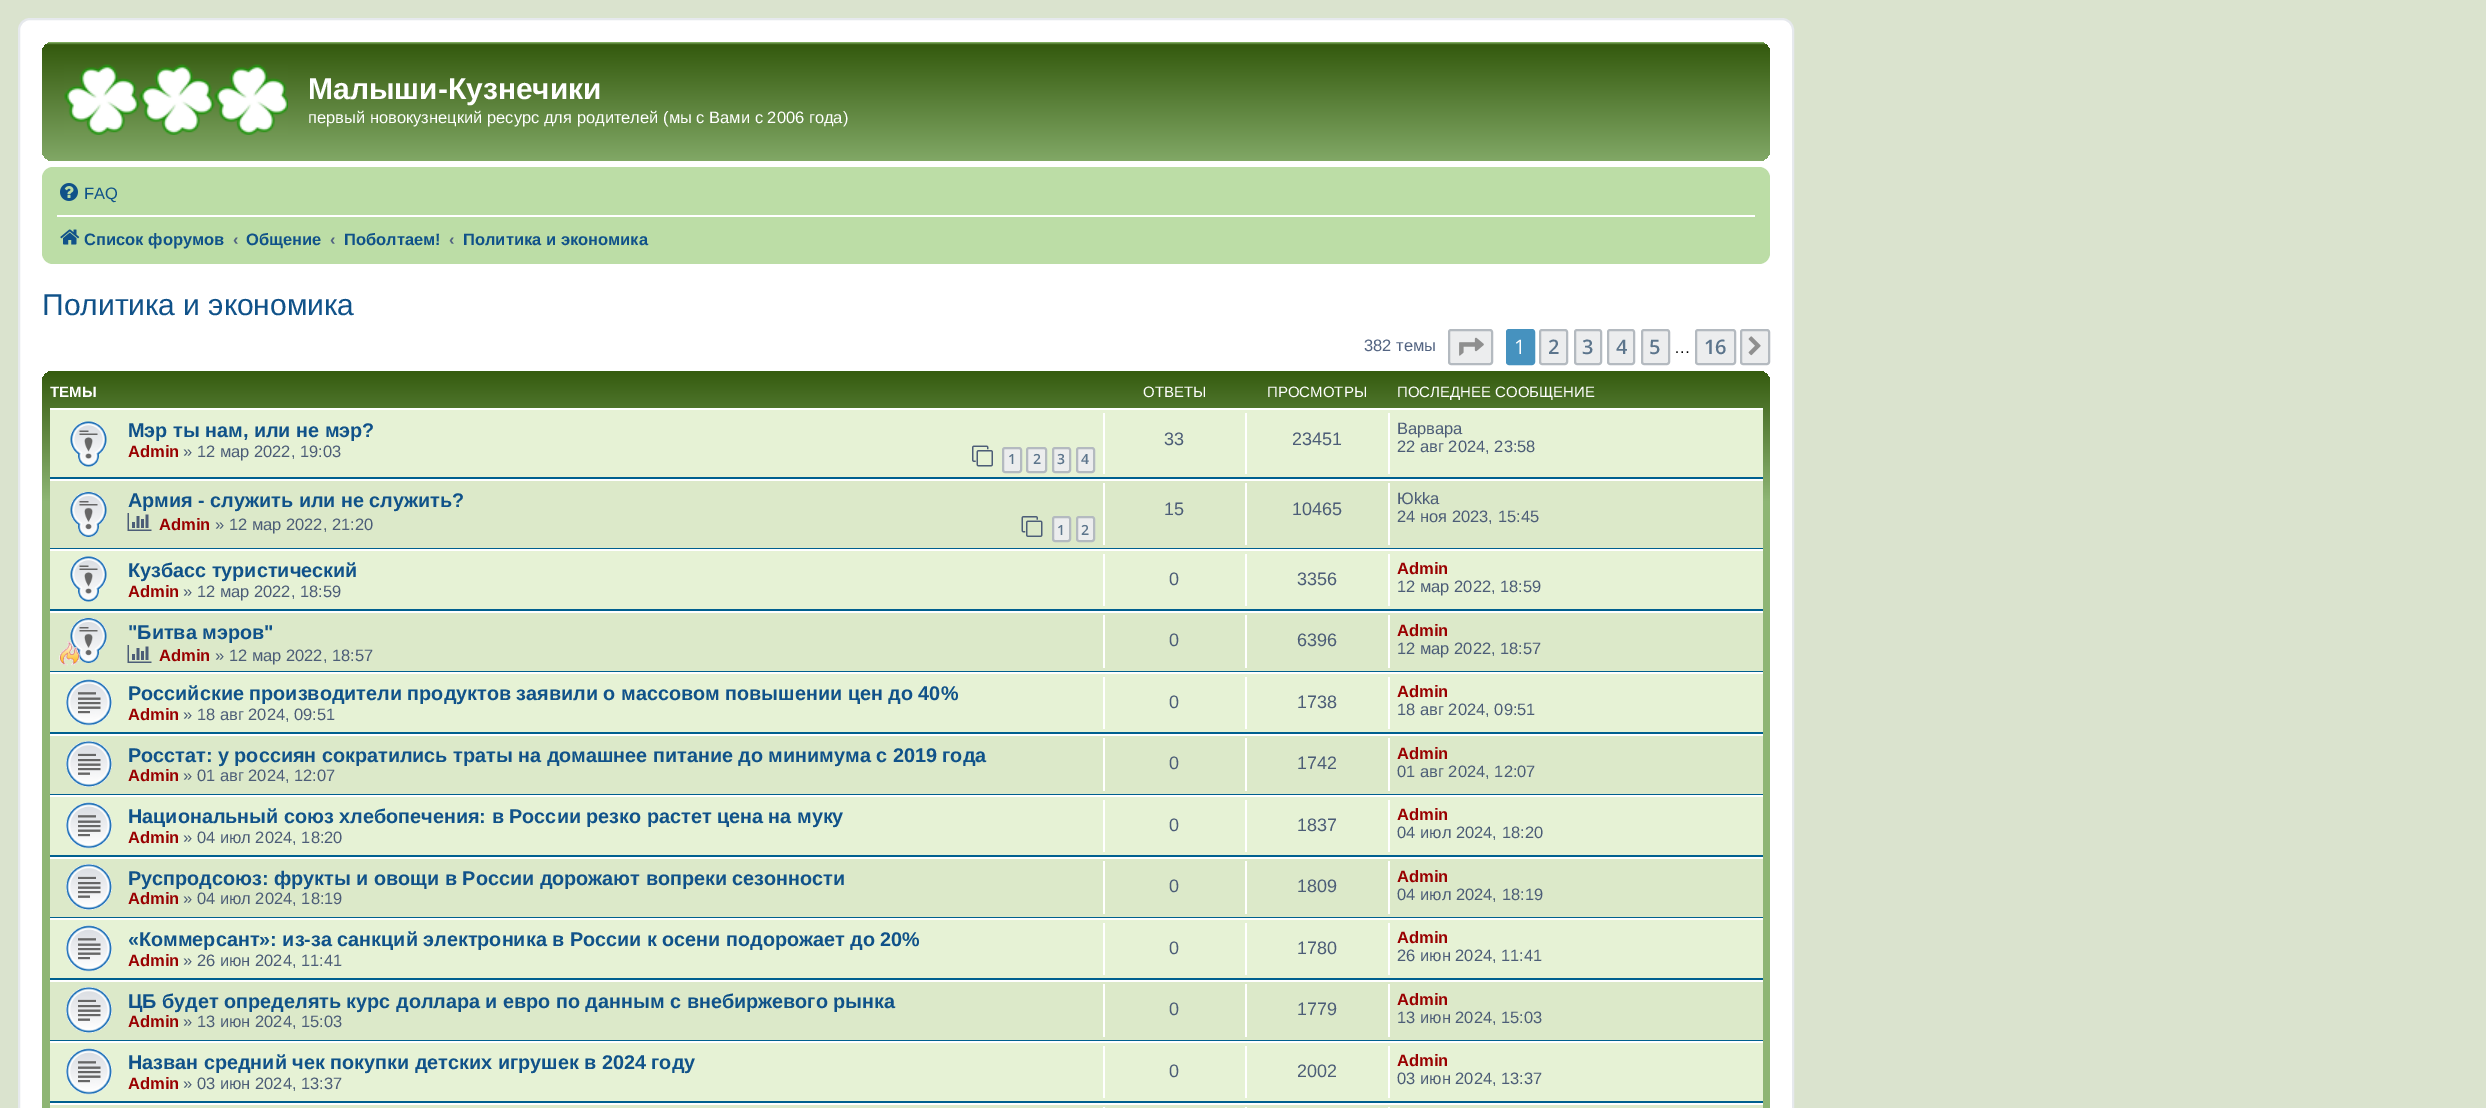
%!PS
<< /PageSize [2486 1108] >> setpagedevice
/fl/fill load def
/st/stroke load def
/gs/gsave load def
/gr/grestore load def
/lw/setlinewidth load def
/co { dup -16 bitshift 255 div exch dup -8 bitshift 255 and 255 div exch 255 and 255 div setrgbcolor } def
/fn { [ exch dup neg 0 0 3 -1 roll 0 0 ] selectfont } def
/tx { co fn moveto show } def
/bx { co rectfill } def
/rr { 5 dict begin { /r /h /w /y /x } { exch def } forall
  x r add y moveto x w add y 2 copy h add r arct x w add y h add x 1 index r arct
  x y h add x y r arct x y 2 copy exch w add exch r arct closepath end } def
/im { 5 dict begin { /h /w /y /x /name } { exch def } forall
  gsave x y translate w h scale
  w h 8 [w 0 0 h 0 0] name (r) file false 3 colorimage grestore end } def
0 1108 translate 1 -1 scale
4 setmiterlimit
0 0 2486 1108 16#DAE3CE bx
16#FFFFFF co
19 19 1774 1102 11 rr gs fl gr
16#E6E9ED co
2 lw
st
gs 42 42 1728 119 11 rr clip newpath
<< /ShadingType 2 /ColorSpace /DeviceRGB /Coords [906 42 906 180] /Extend [true true] /Function << /FunctionType 3 /Domain [0 1] /Functions [<< /FunctionType 2 /Domain [0 1] /C0 [.557 .741 .439] /C1 [.204 .353 .055] /N 1 >> << /FunctionType 2 /Domain [0 1] /C0 [.204 .353 .055] /C1 [.557 .71 .455] /N 1 >>] /Bounds [.02] /Encode [0 1 0 1] >> >> shfill gr
(media/1.raw) 64 64 224 71 im
16#BCDDA6 co
42 167 1728 97 11 rr fl
(media/2.raw) 60 183 18 18 im
57 215 1698 2 16#FFFFFF bx
(media/3.raw) 60 229 20 16 im
16#ECEDEE co
1449 330 43 34 2 rr gs fl gr
16#B4BAC0 co
st
(media/4.raw) 1459 337 25 19 im
16#4692BF co
1507 330 27 34 2 rr gs fl gr
st
16#ECEDEE co
1540 330 27 34 2 rr gs fl gr
16#B4BAC0 co
st
16#ECEDEE co
1575 330 26 34 2 rr gs fl gr
16#B4BAC0 co
st
16#ECEDEE co
1608 330 26 34 2 rr gs fl gr
16#B4BAC0 co
st
16#ECEDEE co
1642 330 27 34 2 rr gs fl gr
16#B4BAC0 co
st
16#ECEDEE co
1696 330 39 34 2 rr gs fl gr
16#B4BAC0 co
st
16#ECEDEE co
1741 330 28 34 2 rr gs fl gr
16#B4BAC0 co
st
(media/5.raw) 1748 336 13 20 im
gs 42 371 1728 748 11 rr clip newpath
<< /ShadingType 2 /ColorSpace /DeviceRGB /Coords [906 370 906 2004] /Extend [true true] /Function << /FunctionType 3 /Domain [0 1] /Functions [<< /FunctionType 2 /Domain [0 1] /C0 [.204 .353 .055] /C1 [.557 .71 .455] /N 1 >> << /FunctionType 2 /Domain [0 1] /C0 [.557 .71 .455] /C1 [.557 .71 .455] /N 1 >>] /Bounds [.08] /Encode [0 1 0 1] >> >> shfill gr
50 410 1713 67 16#E6F2D5 bx
50 408 1713 2 16#FFFFFF bx
50 477 1713 2 16#00608F bx
(media/6.raw) 70 421 37 46 im
(media/7.raw) 972 445 21 22 im
16#ECEDEE co
1003 448 18 24 2 rr gs fl gr
16#B4BAC0 co
st
16#ECEDEE co
1027 448 19 24 2 rr gs fl gr
16#B4BAC0 co
st
16#ECEDEE co
1053 448 17 24 2 rr gs fl gr
16#B4BAC0 co
st
16#ECEDEE co
1077 448 17 24 2 rr gs fl gr
16#B4BAC0 co
st
1103 413 2 61 16#FFFFFF bx
1245 413 2 61 16#FFFFFF bx
1388 413 2 61 16#FFFFFF bx
50 481 1713 67 16#DCE9C9 bx
50 479 1713 2 16#FFFFFF bx
50 548 1713 1 16#00608F bx
(media/8.raw) 70 492 37 45 im
(media/9.raw) 127 513 25 18 im
(media/10.raw) 1021 516 22 21 im
16#ECEDEE co
1053 517 17 24 2 rr gs fl gr
16#B4BAC0 co
st
16#ECEDEE co
1077 517 17 24 2 rr gs fl gr
16#B4BAC0 co
st
1103 483 2 62 16#FFFFFF bx
1245 483 2 62 16#FFFFFF bx
1388 483 2 62 16#FFFFFF bx
50 551 1713 58 16#E6F2D5 bx
50 549 1713 2 16#FFFFFF bx
50 609 1713 2 16#00608F bx
(media/6.raw) 70 556 37 46 im
1103 554 2 52 16#FFFFFF bx
1245 554 2 52 16#FFFFFF bx
1388 554 2 52 16#FFFFFF bx
50 613 1713 58 16#DCE9C9 bx
50 611 1713 2 16#FFFFFF bx
50 671 1713 1 16#00608F bx
(media/8.raw) 70 618 37 45 im
(media/11.raw) 59 641 21 25 im
(media/9.raw) 127 645 25 18 im
1103 615 2 53 16#FFFFFF bx
1245 615 2 53 16#FFFFFF bx
1388 615 2 53 16#FFFFFF bx
50 674 1713 58 16#E6F2D5 bx
50 672 1713 2 16#FFFFFF bx
50 732 1713 2 16#00608F bx
(media/12.raw) 66 679 46 47 im
1103 677 2 52 16#FFFFFF bx
1245 677 2 52 16#FFFFFF bx
1388 677 2 52 16#FFFFFF bx
50 736 1713 58 16#DCE9C9 bx
50 734 1713 2 16#FFFFFF bx
50 794 1713 1 16#00608F bx
(media/13.raw) 66 741 46 46 im
1103 738 2 53 16#FFFFFF bx
1245 738 2 53 16#FFFFFF bx
1388 738 2 53 16#FFFFFF bx
50 797 1713 58 16#E6F2D5 bx
50 795 1713 2 16#FFFFFF bx
50 855 1713 2 16#00608F bx
(media/12.raw) 66 802 46 47 im
1103 800 2 52 16#FFFFFF bx
1245 800 2 52 16#FFFFFF bx
1388 800 2 52 16#FFFFFF bx
50 859 1713 58 16#DCE9C9 bx
50 857 1713 2 16#FFFFFF bx
50 917 1713 1 16#00608F bx
(media/13.raw) 66 864 46 46 im
1103 861 2 53 16#FFFFFF bx
1245 861 2 53 16#FFFFFF bx
1388 861 2 53 16#FFFFFF bx
50 920 1713 58 16#E6F2D5 bx
50 918 1713 2 16#FFFFFF bx
50 978 1713 2 16#00608F bx
(media/12.raw) 66 925 46 47 im
1103 923 2 52 16#FFFFFF bx
1245 923 2 52 16#FFFFFF bx
1388 923 2 52 16#FFFFFF bx
50 982 1713 58 16#DCE9C9 bx
50 980 1713 2 16#FFFFFF bx
50 1040 1713 1 16#00608F bx
(media/13.raw) 66 987 46 46 im
1103 984 2 53 16#FFFFFF bx
1245 984 2 53 16#FFFFFF bx
1388 984 2 53 16#FFFFFF bx
50 1043 1713 58 16#E6F2D5 bx
50 1041 1713 2 16#FFFFFF bx
50 1101 1713 2 16#00608F bx
(media/12.raw) 66 1048 46 47 im
1103 1046 2 52 16#FFFFFF bx
1245 1046 2 52 16#FFFFFF bx
1388 1046 2 52 16#FFFFFF bx
50 1105 1713 3 16#DCE9C9 bx
50 1103 1713 2 16#FFFFFF bx
1103 1107 2 1 16#FFFFFF bx
1245 1107 2 1 16#FFFFFF bx
1388 1107 2 1 16#FFFFFF bx
(Малыши-Кузнечики) 308 99 /LiberationSans-Bold 30 16#FFFFFF tx
(первый новокузнецкий ресурс для родителей \(мы с Вами с 2006 года\)) 308 123 /LiberationSans-Regular 16.5 16#FFFFFF tx
(FAQ) 84 199 /LiberationSans-Regular 16.5 16#105289 tx
(Список форумов) 84 245 /LiberationSans-Bold 16.5 16#105289 tx
(‹) 233 245 /LiberationSans-Bold 16.5 16#536482 tx
(Общение) 246 245 /LiberationSans-Bold 16.5 16#105289 tx
(‹) 330 245 /LiberationSans-Bold 16.5 16#536482 tx
(Поболтаем!) 344 245 /LiberationSans-Bold 16.5 16#105289 tx
(‹) 449 245 /LiberationSans-Bold 16.5 16#536482 tx
(Политика и экономика) 463 245 /LiberationSans-Bold 16.5 16#105289 tx
(Политика и экономика) 42 315 /LiberationSans-Regular 30 16#105289 tx
(382 темы) 1364 351 /LiberationSans-Regular 16.5 16#536482 tx
(1) 1514 354 /OpenSans-Regular 20 16#FFFFFF tx
(2) 1548 354 /OpenSans-SemiBold 20 16#5C758C tx
(3) 1582 354 /OpenSans-SemiBold 20 16#5C758C tx
(4) 1616 354 /OpenSans-SemiBold 20 16#5C758C tx
(5) 1649 354 /OpenSans-SemiBold 20 16#5C758C tx
(…) 1674 353 /LiberationSans-Regular 16.5 16#000000 tx
(16) 1704 354 /OpenSans-SemiBold 20 16#5C758C tx
gs
50 378 1713 30 rectclip
(ТЕМЫ) 50 397 /LiberationSans-Bold 15 16#FFFFFF tx
gr
(ОТВЕТЫ) 1143 397 /LiberationSans-Regular 15 16#FFFFFF tx
(ПРОСМОТРЫ) 1267 397 /LiberationSans-Regular 15 16#FFFFFF tx
(ПОСЛЕДНЕЕ СООБЩЕНИЕ) 1397 397 /LiberationSans-Regular 15 16#FFFFFF tx
(Мэр ты нам, или не мэр?) 128 437 /LiberationSans-Bold 19.8 16#105289 tx
(Admin) 128 457 /LiberationSans-Bold 16.5 16#990000 tx
(» 12 мар 2022, 19:03) 183 457 /LiberationSans-Regular 16.5 16#4C5D77 tx
(1) 1008 464 /OpenSans-SemiBold 14 16#5C758C tx
(2) 1033 464 /OpenSans-SemiBold 14 16#5C758C tx
(3) 1057 464 /OpenSans-SemiBold 14 16#5C758C tx
(4) 1081 464 /OpenSans-SemiBold 14 16#5C758C tx
(33) 1164 445 /LiberationSans-Regular 18 16#4C5D77 tx
(23451) 1292 445 /LiberationSans-Regular 18 16#4C5D77 tx
(Варвара) 1397 434 /LiberationSans-Regular 16.5 16#4C5D77 tx
(22 авг 2024, 23:58) 1397 452 /LiberationSans-Regular 16.5 16#4C5D77 tx
(Армия - служить или не служить?) 128 507 /LiberationSans-Bold 19.8 16#105289 tx
(Admin) 159 530 /LiberationSans-Bold 16.5 16#990000 tx
(» 12 мар 2022, 21:20) 215 530 /LiberationSans-Regular 16.5 16#4C5D77 tx
(1) 1057 535 /OpenSans-SemiBold 14 16#5C758C tx
(2) 1081 535 /OpenSans-SemiBold 14 16#5C758C tx
(15) 1164 515 /LiberationSans-Regular 18 16#4C5D77 tx
(10465) 1292 515 /LiberationSans-Regular 18 16#4C5D77 tx
(Юkka) 1397 504 /LiberationSans-Regular 16.5 16#4C5D77 tx
(24 ноя 2023, 15:45) 1397 522 /LiberationSans-Regular 16.5 16#4C5D77 tx
(Кузбасс туристический) 128 577 /LiberationSans-Bold 19.8 16#105289 tx
(Admin) 128 597 /LiberationSans-Bold 16.5 16#990000 tx
(» 12 мар 2022, 18:59) 183 597 /LiberationSans-Regular 16.5 16#4C5D77 tx
(0) 1169 585 /LiberationSans-Regular 18 16#4C5D77 tx
(3356) 1297 585 /LiberationSans-Regular 18 16#4C5D77 tx
(Admin) 1397 574 /LiberationSans-Bold 16.5 16#990000 tx
(12 мар 2022, 18:59) 1397 592 /LiberationSans-Regular 16.5 16#4C5D77 tx
("Битва мэров") 128 639 /LiberationSans-Bold 19.8 16#105289 tx
(Admin) 159 661 /LiberationSans-Bold 16.5 16#990000 tx
(» 12 мар 2022, 18:57) 215 661 /LiberationSans-Regular 16.5 16#4C5D77 tx
(0) 1169 646 /LiberationSans-Regular 18 16#4C5D77 tx
(6396) 1297 646 /LiberationSans-Regular 18 16#4C5D77 tx
(Admin) 1397 636 /LiberationSans-Bold 16.5 16#990000 tx
(12 мар 2022, 18:57) 1397 654 /LiberationSans-Regular 16.5 16#4C5D77 tx
(Российские производители продуктов заявили о массовом повышении цен до 40%) 128 700 /LiberationSans-Bold 19.8 16#105289 tx
(Admin) 128 720 /LiberationSans-Bold 16.5 16#990000 tx
(» 18 авг 2024, 09:51) 183 720 /LiberationSans-Regular 16.5 16#4C5D77 tx
(0) 1169 708 /LiberationSans-Regular 18 16#4C5D77 tx
(1738) 1297 708 /LiberationSans-Regular 18 16#4C5D77 tx
(Admin) 1397 697 /LiberationSans-Bold 16.5 16#990000 tx
(18 авг 2024, 09:51) 1397 715 /LiberationSans-Regular 16.5 16#4C5D77 tx
(Росстат: у россиян сократились траты на домашнее питание до минимума с 2019 года) 128 762 /LiberationSans-Bold 19.8 16#105289 tx
(Admin) 128 781 /LiberationSans-Bold 16.5 16#990000 tx
(» 01 авг 2024, 12:07) 183 781 /LiberationSans-Regular 16.5 16#4C5D77 tx
(0) 1169 769 /LiberationSans-Regular 18 16#4C5D77 tx
(1742) 1297 769 /LiberationSans-Regular 18 16#4C5D77 tx
(Admin) 1397 759 /LiberationSans-Bold 16.5 16#990000 tx
(01 авг 2024, 12:07) 1397 777 /LiberationSans-Regular 16.5 16#4C5D77 tx
(Национальный союз хлебопечения: в России резко растет цена на муку) 128 823 /LiberationSans-Bold 19.8 16#105289 tx
(Admin) 128 843 /LiberationSans-Bold 16.5 16#990000 tx
(» 04 июл 2024, 18:20) 183 843 /LiberationSans-Regular 16.5 16#4C5D77 tx
(0) 1169 831 /LiberationSans-Regular 18 16#4C5D77 tx
(1837) 1297 831 /LiberationSans-Regular 18 16#4C5D77 tx
(Admin) 1397 820 /LiberationSans-Bold 16.5 16#990000 tx
(04 июл 2024, 18:20) 1397 838 /LiberationSans-Regular 16.5 16#4C5D77 tx
(Руспродсоюз: фрукты и овощи в России дорожают вопреки сезонности) 128 885 /LiberationSans-Bold 19.8 16#105289 tx
(Admin) 128 904 /LiberationSans-Bold 16.5 16#990000 tx
(» 04 июл 2024, 18:19) 183 904 /LiberationSans-Regular 16.5 16#4C5D77 tx
(0) 1169 892 /LiberationSans-Regular 18 16#4C5D77 tx
(1809) 1297 892 /LiberationSans-Regular 18 16#4C5D77 tx
(Admin) 1397 882 /LiberationSans-Bold 16.5 16#990000 tx
(04 июл 2024, 18:19) 1397 900 /LiberationSans-Regular 16.5 16#4C5D77 tx
(«Коммерсант»: из-за санкций электроника в России к осени подорожает до 20%) 128 946 /LiberationSans-Bold 19.8 16#105289 tx
(Admin) 128 966 /LiberationSans-Bold 16.5 16#990000 tx
(» 26 июн 2024, 11:41) 183 966 /LiberationSans-Regular 16.5 16#4C5D77 tx
(0) 1169 954 /LiberationSans-Regular 18 16#4C5D77 tx
(1780) 1297 954 /LiberationSans-Regular 18 16#4C5D77 tx
(Admin) 1397 943 /LiberationSans-Bold 16.5 16#990000 tx
(26 июн 2024, 11:41) 1397 961 /LiberationSans-Regular 16.5 16#4C5D77 tx
(ЦБ будет определять курс доллара и евро по данным с внебиржевого рынка) 128 1008 /LiberationSans-Bold 19.8 16#105289 tx
(Admin) 128 1027 /LiberationSans-Bold 16.5 16#990000 tx
(» 13 июн 2024, 15:03) 183 1027 /LiberationSans-Regular 16.5 16#4C5D77 tx
(0) 1169 1015 /LiberationSans-Regular 18 16#4C5D77 tx
(1779) 1297 1015 /LiberationSans-Regular 18 16#4C5D77 tx
(Admin) 1397 1005 /LiberationSans-Bold 16.5 16#990000 tx
(13 июн 2024, 15:03) 1397 1023 /LiberationSans-Regular 16.5 16#4C5D77 tx
(Назван средний чек покупки детских игрушек в 2024 году) 128 1069 /LiberationSans-Bold 19.8 16#105289 tx
(Admin) 128 1089 /LiberationSans-Bold 16.5 16#990000 tx
(» 03 июн 2024, 13:37) 183 1089 /LiberationSans-Regular 16.5 16#4C5D77 tx
(0) 1169 1077 /LiberationSans-Regular 18 16#4C5D77 tx
(2002) 1297 1077 /LiberationSans-Regular 18 16#4C5D77 tx
(Admin) 1397 1066 /LiberationSans-Bold 16.5 16#990000 tx
(03 июн 2024, 13:37) 1397 1084 /LiberationSans-Regular 16.5 16#4C5D77 tx
showpage
